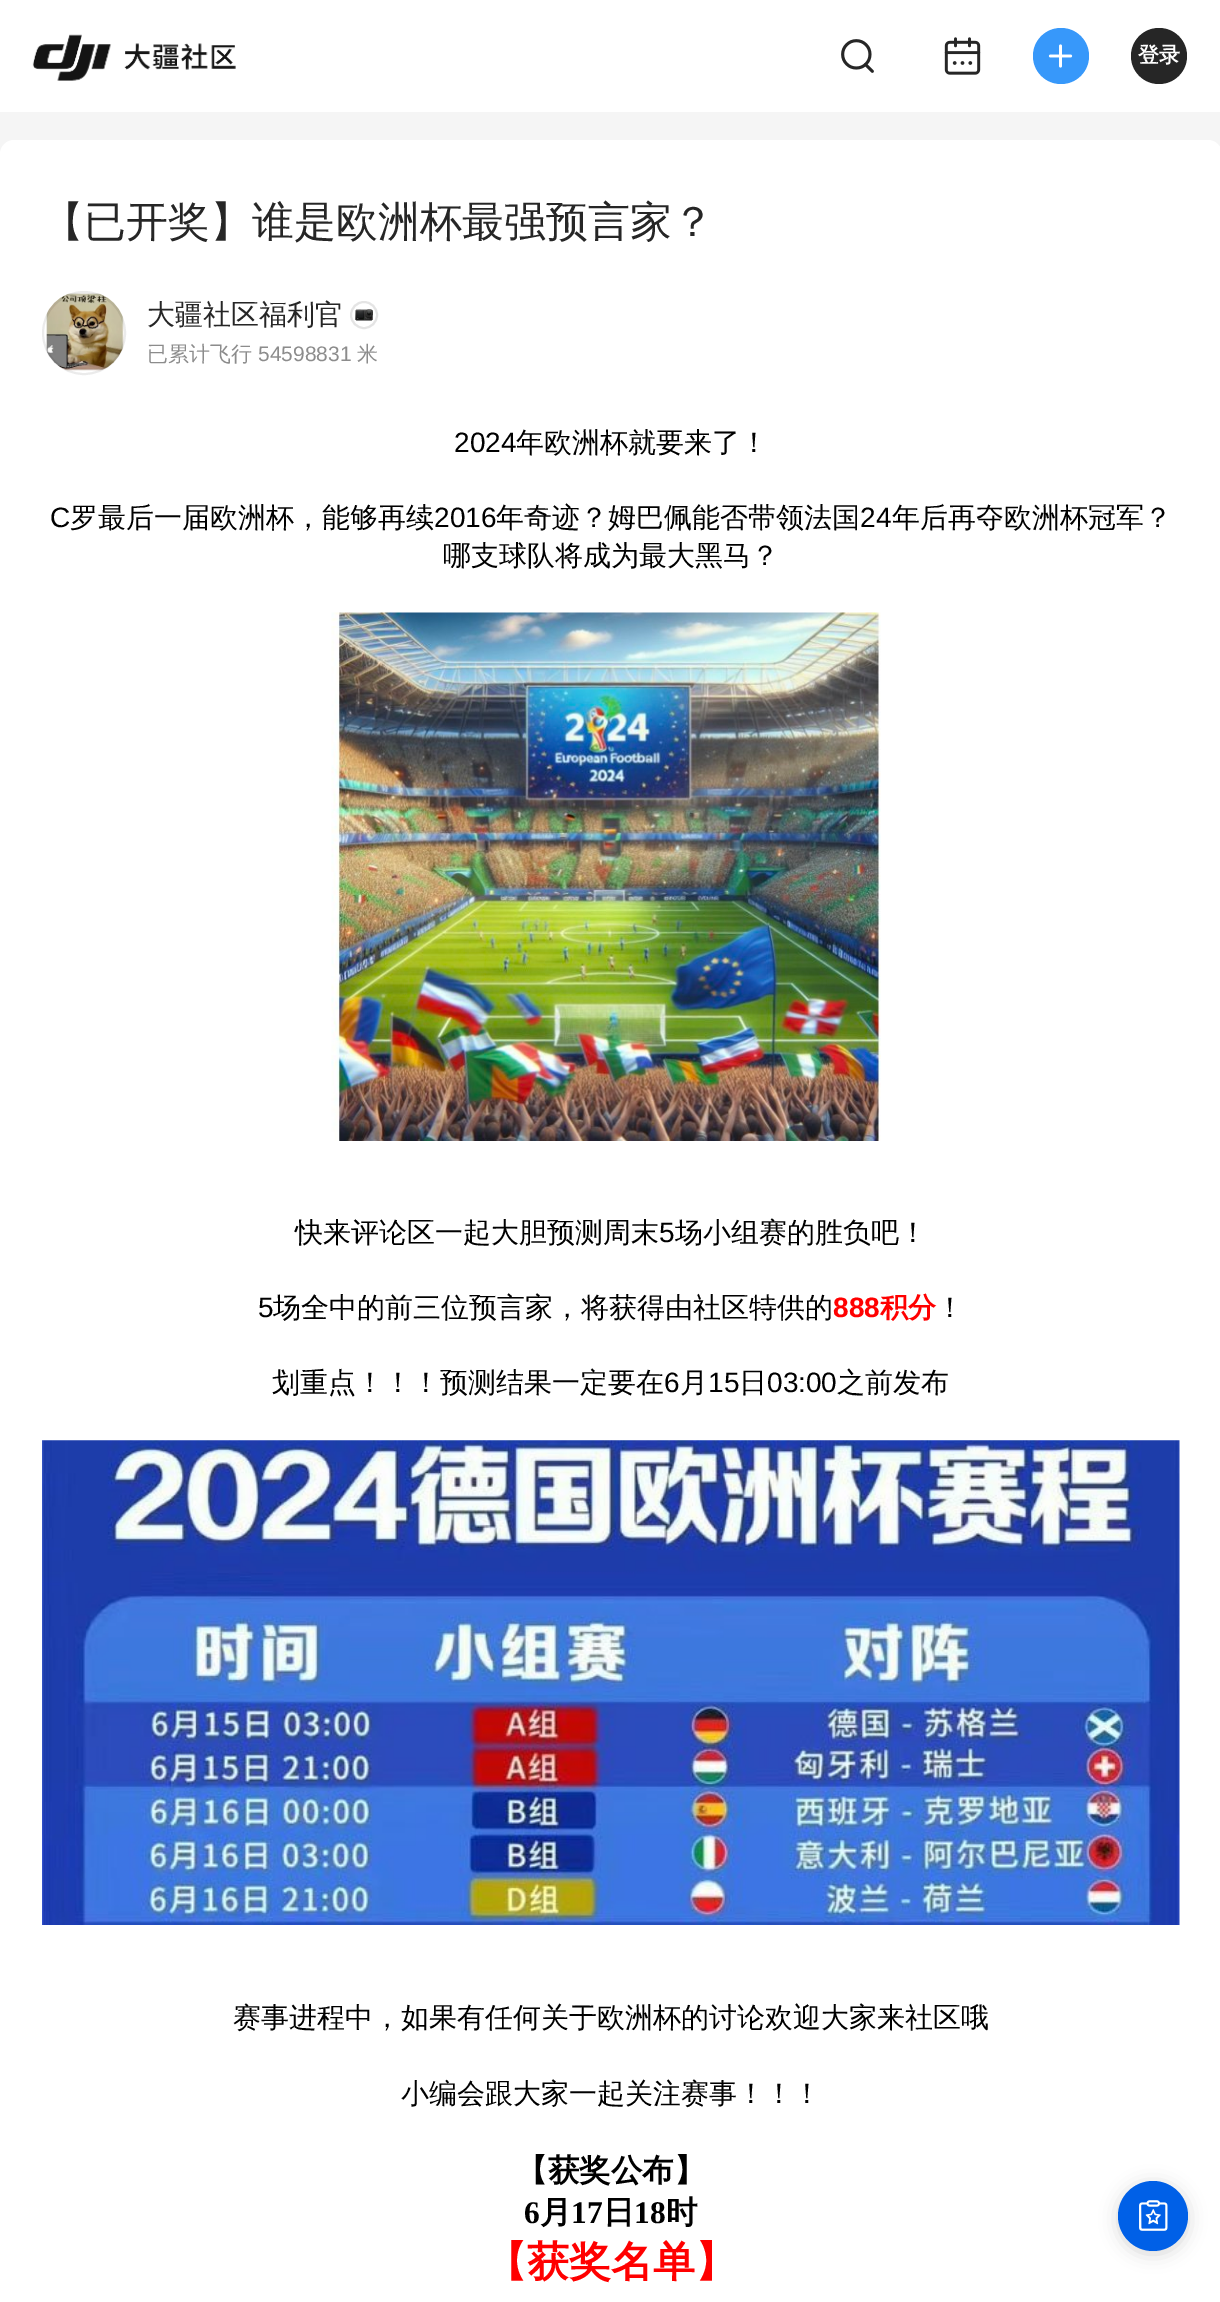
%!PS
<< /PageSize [1220 2302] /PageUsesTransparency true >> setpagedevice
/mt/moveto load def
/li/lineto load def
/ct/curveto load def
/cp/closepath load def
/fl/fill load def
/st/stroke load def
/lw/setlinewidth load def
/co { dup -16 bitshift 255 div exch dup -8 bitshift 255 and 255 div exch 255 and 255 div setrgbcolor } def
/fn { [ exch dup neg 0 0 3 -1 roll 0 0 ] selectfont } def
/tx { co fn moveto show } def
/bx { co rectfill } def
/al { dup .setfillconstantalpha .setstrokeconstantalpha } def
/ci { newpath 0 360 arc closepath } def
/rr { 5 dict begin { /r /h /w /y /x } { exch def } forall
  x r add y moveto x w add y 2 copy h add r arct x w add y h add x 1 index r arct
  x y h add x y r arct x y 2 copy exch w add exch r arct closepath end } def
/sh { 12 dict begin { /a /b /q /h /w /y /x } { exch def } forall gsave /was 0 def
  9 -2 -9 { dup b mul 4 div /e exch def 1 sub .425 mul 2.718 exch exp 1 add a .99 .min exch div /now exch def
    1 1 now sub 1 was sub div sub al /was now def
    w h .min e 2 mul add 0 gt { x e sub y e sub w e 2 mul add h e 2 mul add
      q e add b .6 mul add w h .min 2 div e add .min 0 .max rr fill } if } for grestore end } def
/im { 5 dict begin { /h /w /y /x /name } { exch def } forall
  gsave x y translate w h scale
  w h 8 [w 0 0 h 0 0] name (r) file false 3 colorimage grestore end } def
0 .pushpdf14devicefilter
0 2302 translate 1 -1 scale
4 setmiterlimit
0 0 1220 2302 16#F5F5F5 bx
0 0 1220 112 16#FFFFFF bx
(media/1.raw) 32 34 204 47 im
(media/2.raw) 841 39 33 34 im
(media/3.raw) 944 37 37 38 im
16#3798FA co
1061 56 28 ci fl
(media/4.raw) 1048 44 25 24 im
16#262626 co
1159 56 28 ci fl
16#FFFFFF co
14 140 mt 1208 140 li 1215.5 140 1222 146.5 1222 154 ct 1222 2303 li 0 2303 li 0 154 li 0 146.5 6.5 140 14 140 ct cp fl
(media/5.raw) 46 293 78 78 im
0.08 al
16#000000 co
2 lw
84 333 41 ci st
1 al
16#E4E4E4 co
364 315 13 ci st
(media/6.raw) 355 309 18 12 im
(media/7.raw) 331 612 550 529 im
(media/8.raw) 42 1440 1138 485 im
16#000000 co
1118 2184 70 70 35 9 .16 sh
16#0060E7 co
1153 2216 35 ci fl
(media/9.raw) 1139 2200 29 31 im
(登录) 1138 62 /WenQuanYiZenHei-Bold 21 16#FFFFFF tx
(【已开奖】谁是欧洲杯最强预言家？) 42 236 /WenQuanYiZenHei-Medium 42 16#262626 tx
(大疆社区福利官) 147 324 /WenQuanYiZenHei-Medium 28 16#262626 tx
(已累计飞行) 147 361 /WenQuanYiZenHei-Medium 21 16#8C8C8C tx
(54598831) 258 361 /LiberationSans-Regular 21 16#8C8C8C tx
(米) 357 361 /WenQuanYiZenHei-Medium 21 16#8C8C8C tx
(2024) 454 452 /LiberationSans-Regular 28 16#000000 tx
(年欧洲杯就要来了！) 516 452 /WenQuanYiZenHei-Medium 28 16#000000 tx
(C) 50 527 /LiberationSans-Regular 28 16#000000 tx
(罗最后一届欧洲杯，能够再续) 70 527 /WenQuanYiZenHei-Medium 28 16#000000 tx
(2016) 434 527 /LiberationSans-Regular 28 16#000000 tx
(年奇迹？姆巴佩能否带领法国) 496 527 /WenQuanYiZenHei-Medium 28 16#000000 tx
(24) 860 527 /LiberationSans-Regular 28 16#000000 tx
(年后再夺欧洲杯冠军？) 892 527 /WenQuanYiZenHei-Medium 28 16#000000 tx
(哪支球队将成为最大黑马？) 443 565 /WenQuanYiZenHei-Medium 28 16#000000 tx
(快来评论区一起大胆预测周末) 295 1242 /WenQuanYiZenHei-Medium 28 16#000000 tx
(5) 659 1242 /LiberationSans-Regular 28 16#000000 tx
(场小组赛的胜负吧！) 675 1242 /WenQuanYiZenHei-Medium 28 16#000000 tx
(5) 258 1317 /LiberationSans-Regular 28 16#000000 tx
(场全中的前三位预言家，将获得由社区特供的) 273 1317 /WenQuanYiZenHei-Medium 28 16#000000 tx
(888) 833 1317 /LiberationSans-Bold 28 16#FF0000 tx
(积分) 880 1317 /WenQuanYiZenHei-Bold 28 16#FF0000 tx
(！) 936 1317 /WenQuanYiZenHei-Medium 28 16#000000 tx
(划重点！！！预测结果一定要在) 272 1392 /WenQuanYiZenHei-Medium 28 16#000000 tx
(6) 664 1392 /LiberationSans-Regular 28 16#000000 tx
(月) 680 1392 /WenQuanYiZenHei-Medium 28 16#000000 tx
(15) 708 1392 /LiberationSans-Regular 28 16#000000 tx
(日) 739 1392 /WenQuanYiZenHei-Medium 28 16#000000 tx
(03:00) 767 1392 /LiberationSans-Regular 28 16#000000 tx
(之前发布) 837 1392 /WenQuanYiZenHei-Medium 28 16#000000 tx
(赛事进程中，如果有任何关于欧洲杯的讨论欢迎大家来社区哦) 233 2027 /WenQuanYiZenHei-Medium 28 16#000000 tx
(小编会跟大家一起关注赛事！！！) 401 2103 /WenQuanYiZenHei-Medium 28 16#000000 tx
(【获奖公布】) 516 2181 /WenQuanYiZenHei-Bold 31.5 16#000000 tx
(6) 524 2223 /LiberationSerif-Bold 31.5 16#000000 tx
(月) 540 2223 /WenQuanYiZenHei-Bold 31.5 16#000000 tx
(17) 571 2223 /LiberationSerif-Bold 31.5 16#000000 tx
(日) 603 2223 /WenQuanYiZenHei-Bold 31.5 16#000000 tx
(18) 634 2223 /LiberationSerif-Bold 31.5 16#000000 tx
(时) 666 2223 /WenQuanYiZenHei-Bold 31.5 16#000000 tx
(【获奖名单】) 485 2276 /WenQuanYiZenHei-Bold 42 16#FF0000 tx
.poppdf14devicefilter showpage
